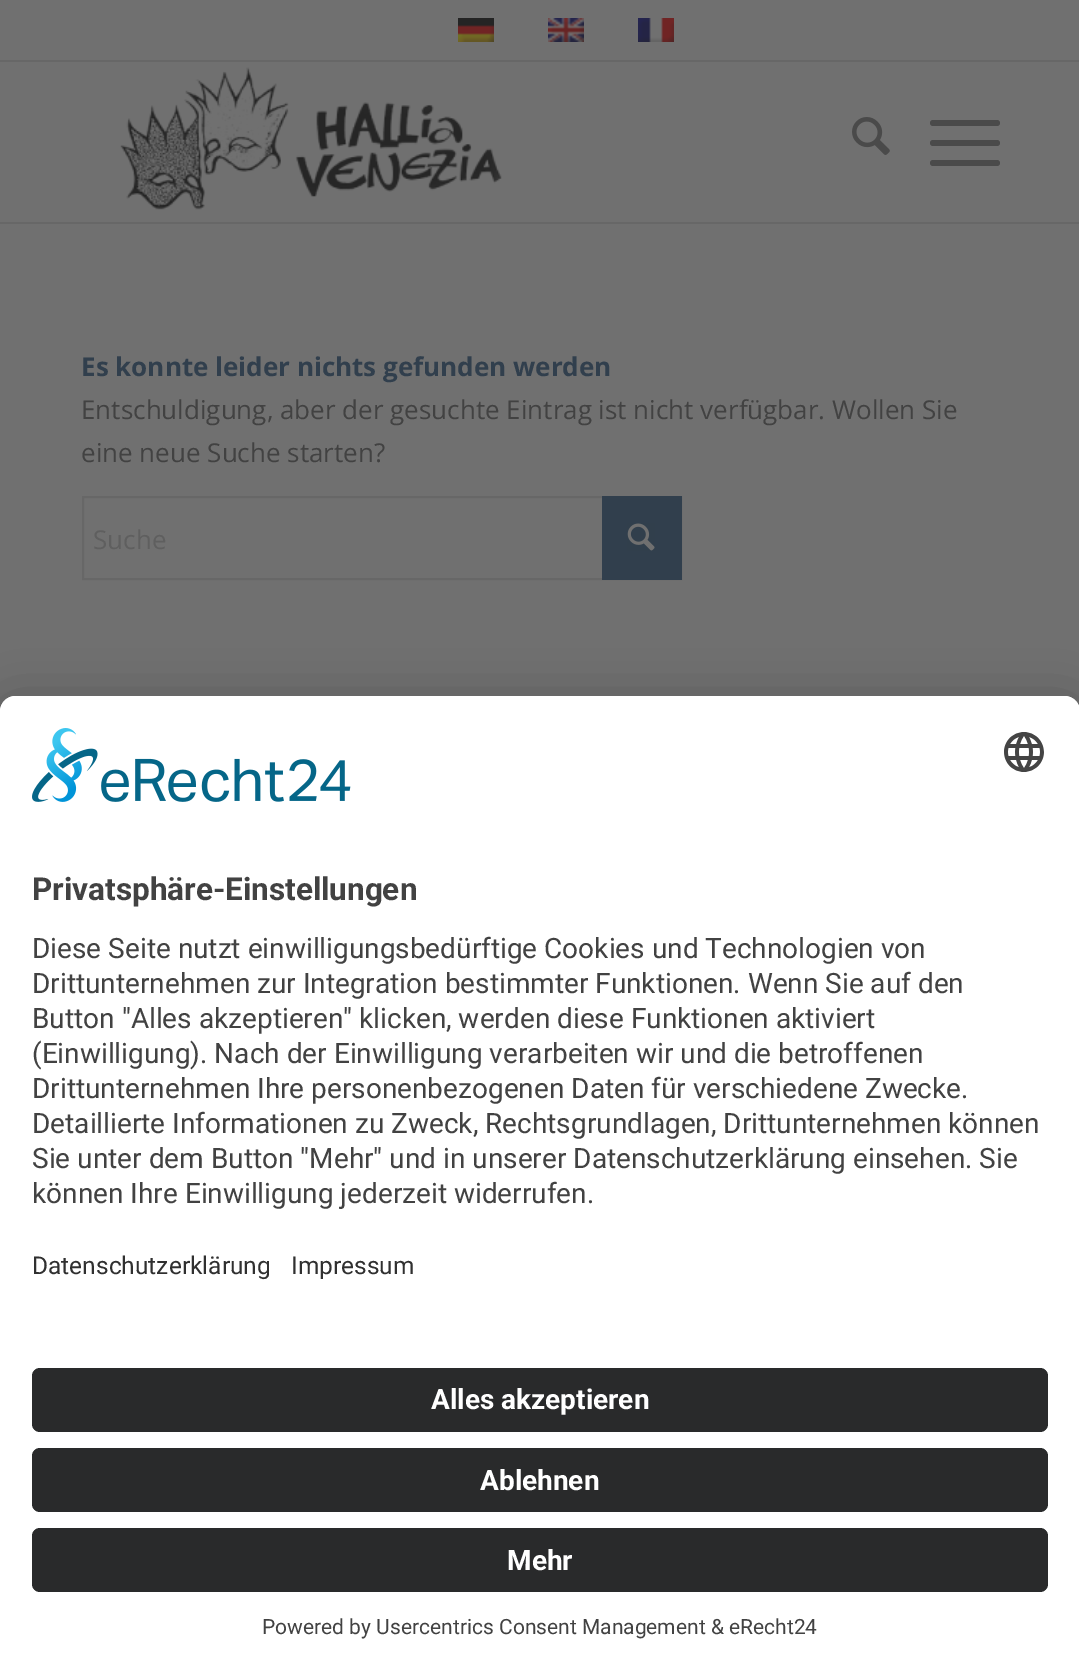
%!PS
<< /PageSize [1079 1671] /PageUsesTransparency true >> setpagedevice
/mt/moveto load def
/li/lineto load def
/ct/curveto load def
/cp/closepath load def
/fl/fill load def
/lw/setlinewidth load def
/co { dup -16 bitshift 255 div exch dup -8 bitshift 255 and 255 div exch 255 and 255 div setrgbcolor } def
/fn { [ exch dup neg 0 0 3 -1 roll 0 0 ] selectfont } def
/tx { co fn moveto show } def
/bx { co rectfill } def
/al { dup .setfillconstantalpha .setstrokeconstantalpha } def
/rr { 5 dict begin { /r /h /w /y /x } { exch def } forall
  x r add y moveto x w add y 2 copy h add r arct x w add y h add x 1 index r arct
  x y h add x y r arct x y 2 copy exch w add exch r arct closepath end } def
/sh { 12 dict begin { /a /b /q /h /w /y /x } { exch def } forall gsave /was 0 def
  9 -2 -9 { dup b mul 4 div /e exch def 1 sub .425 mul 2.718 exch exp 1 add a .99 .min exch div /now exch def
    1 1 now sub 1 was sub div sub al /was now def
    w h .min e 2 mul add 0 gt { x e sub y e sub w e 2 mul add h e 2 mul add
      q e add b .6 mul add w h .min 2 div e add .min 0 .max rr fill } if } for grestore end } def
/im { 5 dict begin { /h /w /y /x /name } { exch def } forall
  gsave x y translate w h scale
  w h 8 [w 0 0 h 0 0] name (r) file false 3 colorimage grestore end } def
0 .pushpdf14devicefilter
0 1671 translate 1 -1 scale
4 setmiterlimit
0 0 1079 1671 16#707070 bx
0 60 1079 2 16#676767 bx
(media/1.raw) 458 18 36 24 im
(media/2.raw) 548 18 36 24 im
(media/3.raw) 638 18 36 24 im
0 222 1079 2 16#676767 bx
(media/4.raw) 120 67 382 143 im
(media/5.raw) 852 117 38 38 im
16#4A4A4A co
930 140 70 6 3 rr fl
930 120 70 6 3 rr fl
930 160 70 6 3 rr fl
16#676767 co
2 lw
83 497 598 82 rectstroke
602 496 80 84 16#313F4D bx
(media/6.raw) 627 523 28 28 im
16#000000 co
0 736 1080 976 16 28 .3 sh
0 706 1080 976 16 26 .22 sh
16#FFFFFF co
16 696 mt 1064 696 li 1073 696 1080 703 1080 712 ct 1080 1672 li 0 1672 li 0 712 li 0 703 7 696 16 696 ct cp fl
16 696 mt 1064 696 li 1073 696 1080 703 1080 712 ct 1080 1344 li 0 1344 li 0 712 li 0 703 7 696 16 696 ct cp fl
(media/7.raw) 32 728 319 74 im
(media/8.raw) 1004 732 40 40 im
16#292A2B co
32 1368 1016 64 8 rr fl
32 1448 1016 64 8 rr fl
32 1528 1016 64 8 rr fl
(Es konnte leider nichts gefunden werden) 81 376 /OpenSans-Bold 26 16#313F4D tx
(Entschuldigung, aber der gesuchte Eintrag ist nicht verfügbar. Wollen Sie) 81 419 /OpenSans-Regular 26 16#424242 tx
(eine neue Suche starten?) 81 462 /OpenSans-Regular 26 16#424242 tx
(Suche) 93 549 /OpenSans-Regular 26 16#5F5F5F tx
(Privatsphäre-Einstellungen) 32 900 /Roboto-Bold 31.5 16#424242 tx
(Diese Seite nutzt einwilligungsbedürftige Cookies und Technologien von) 32 958 /Roboto-Regular 28 16#424242 tx
(Drittunternehmen zur Integration bestimmter Funktionen. Wenn Sie auf den) 32 993 /Roboto-Regular 28 16#424242 tx
(Button "Alles akzeptieren" klicken, werden diese Funktionen aktiviert) 32 1028 /Roboto-Regular 28 16#424242 tx
(\(Einwilligung\). Nach der Einwilligung verarbeiten wir und die betroffenen) 32 1063 /Roboto-Regular 28 16#424242 tx
(Drittunternehmen Ihre personenbezogenen Daten für verschiedene Zwecke.) 32 1098 /Roboto-Regular 28 16#424242 tx
(Detaillierte Informationen zu Zweck, Rechtsgrundlagen, Drittunternehmen können) 32 1133 /Roboto-Regular 28 16#424242 tx
(Sie unter dem Button "Mehr" und in unserer Datenschutzerklärung einsehen. Sie) 32 1168 /Roboto-Regular 28 16#424242 tx
(können Ihre Einwilligung jederzeit widerrufen.) 32 1203 /Roboto-Regular 28 16#424242 tx
(Datenschutzerklärung) 32 1274 /Roboto-Regular 24.5 16#303030 tx
(Impressum) 291 1274 /Roboto-Regular 24.5 16#303030 tx
(Alles akzeptieren) 431 1409 /Roboto-Bold 28 16#FFFFFF tx
(Ablehnen) 480 1490 /Roboto-Bold 28 16#FFFFFF tx
(Mehr) 507 1570 /Roboto-Bold 28 16#FFFFFF tx
(Powered by Usercentrics Consent Management & eRecht24) 262 1634 /Roboto-Regular 21 16#424242 tx
.poppdf14devicefilter showpage
